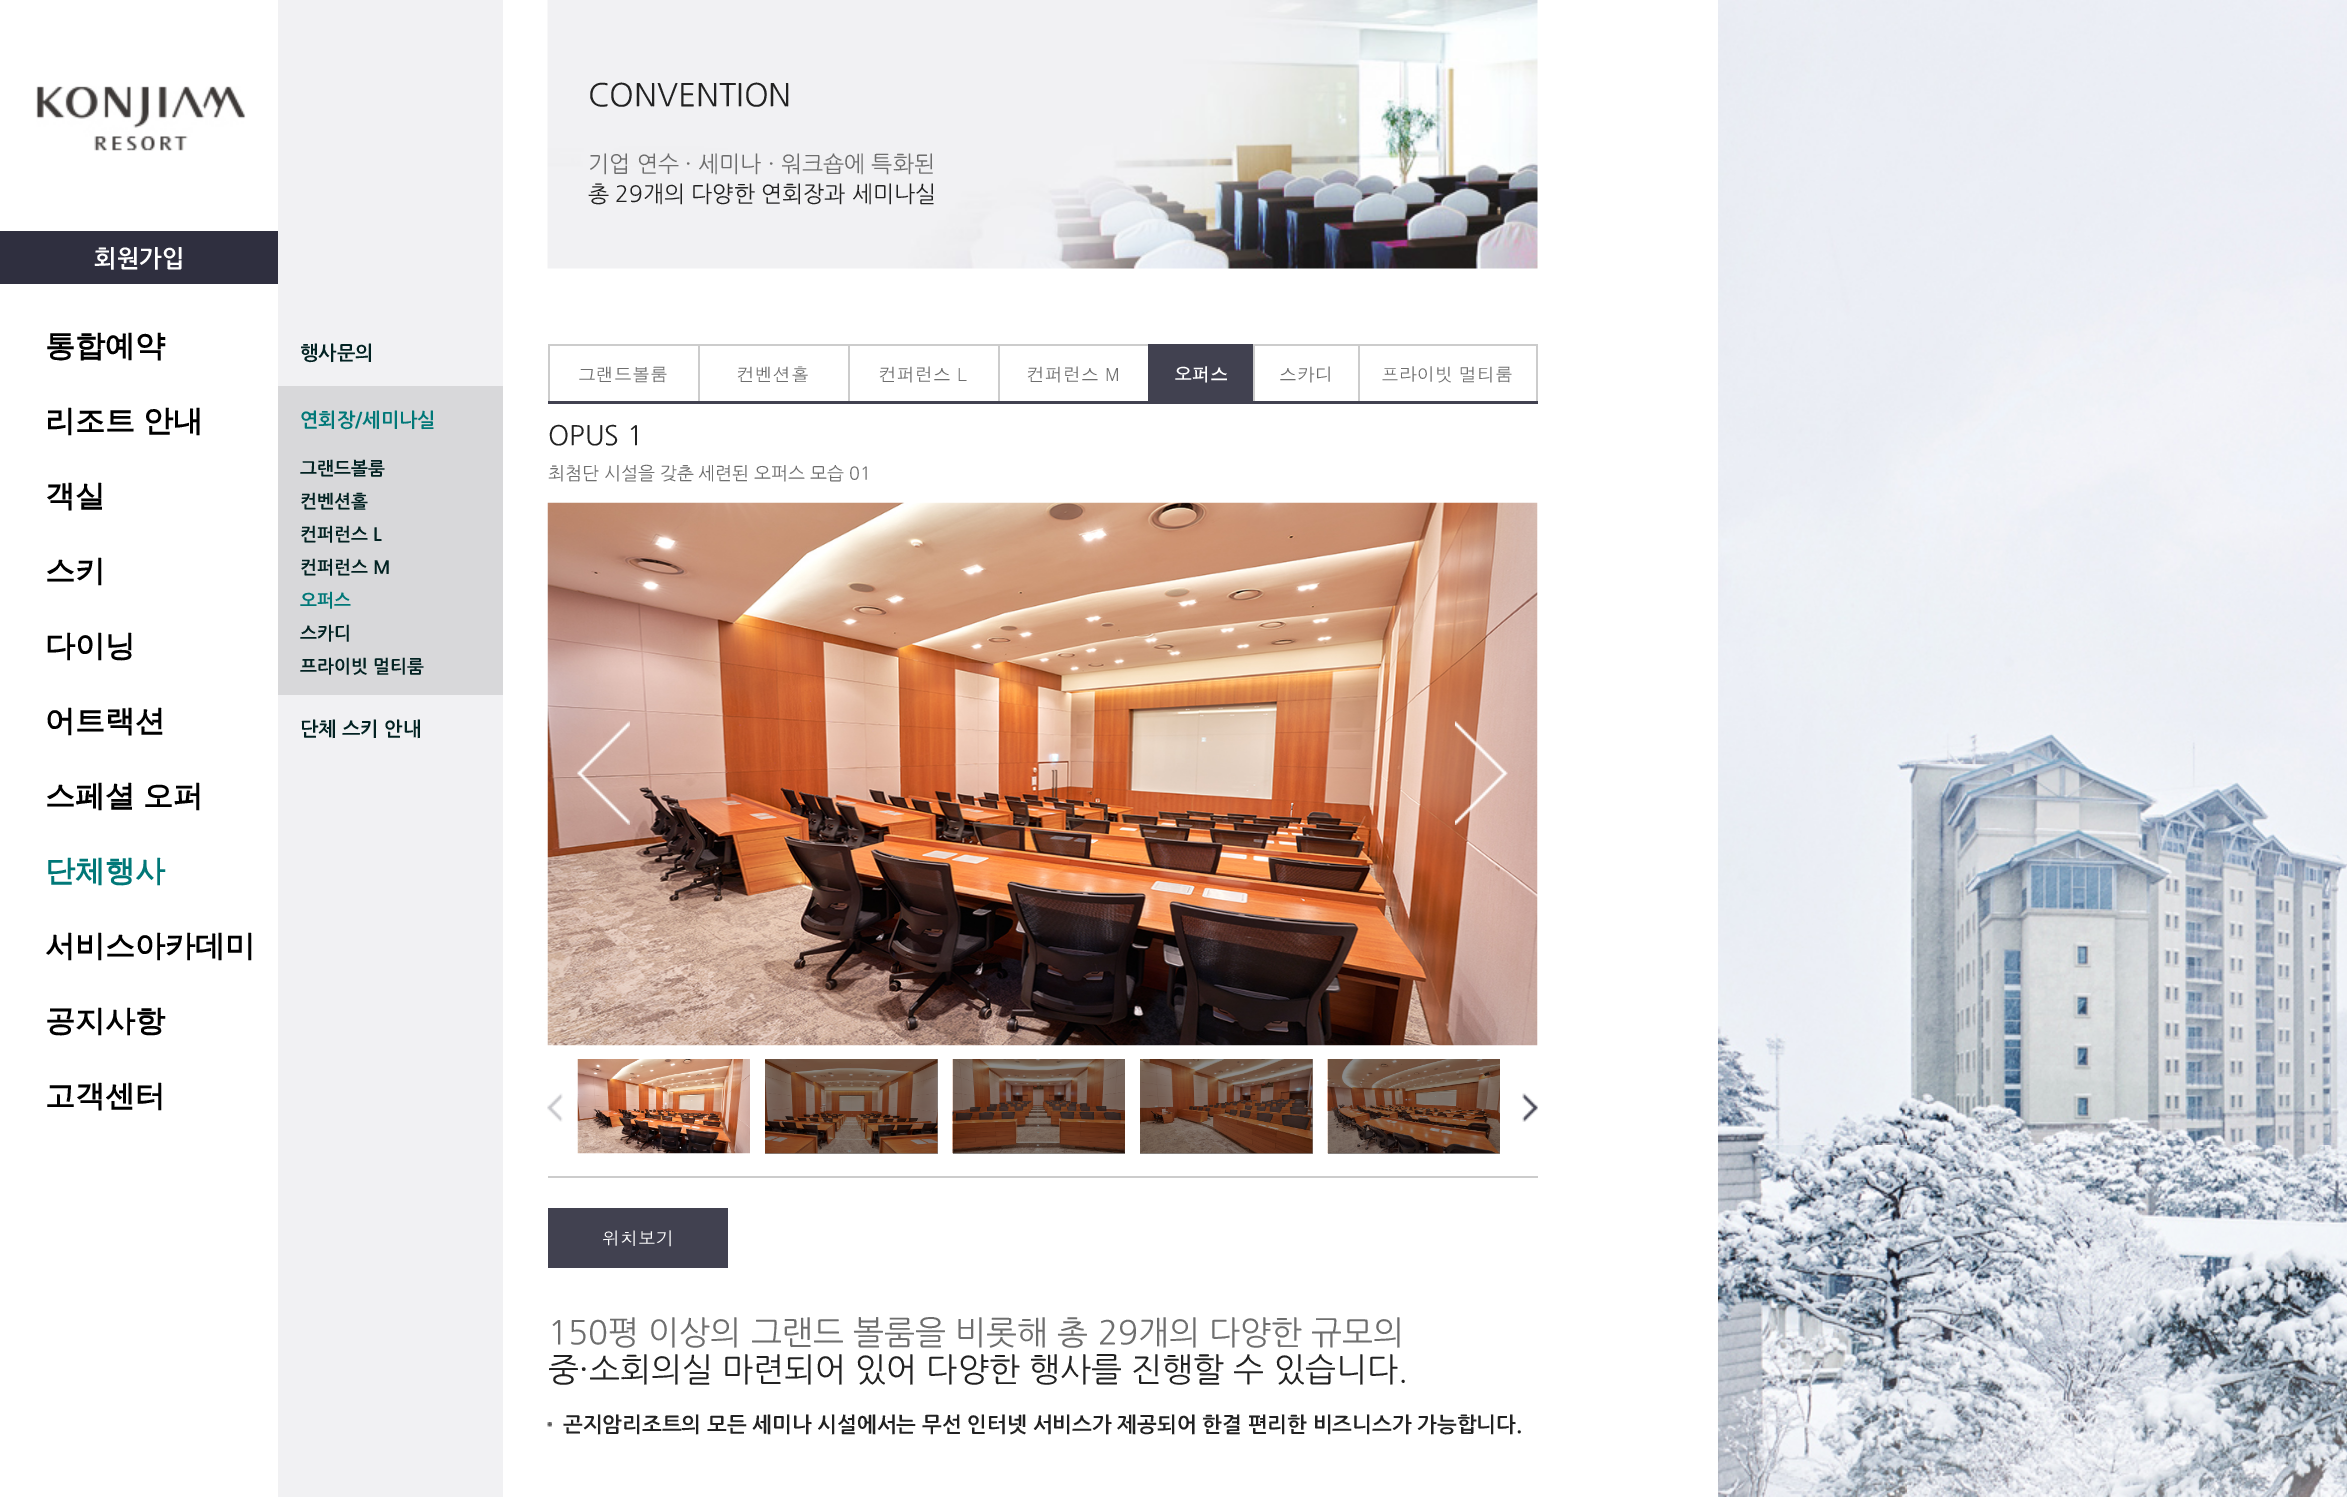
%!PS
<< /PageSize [2347 1497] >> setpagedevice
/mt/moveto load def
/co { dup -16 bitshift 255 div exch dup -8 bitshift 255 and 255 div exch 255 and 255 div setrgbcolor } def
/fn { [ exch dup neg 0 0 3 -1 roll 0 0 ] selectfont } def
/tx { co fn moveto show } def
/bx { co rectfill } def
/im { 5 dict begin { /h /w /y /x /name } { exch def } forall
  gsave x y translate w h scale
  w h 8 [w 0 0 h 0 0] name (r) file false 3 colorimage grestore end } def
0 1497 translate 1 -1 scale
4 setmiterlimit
0 0 2347 1497 16#FFFFFF bx
1328 1153 172 1 16#8A8A8A bx
1140 1059 173 95 16#8A8A8A bx
953 1153 172 1 16#8A8A8A bx
765 1059 173 95 16#8A8A8A bx
(media/1.raw) 1718 0 629 1497 im
278 0 225 1497 16#F1F1F3 bx
(media/2.raw) 36 86 210 65 im
0 231 278 53 16#2F2F3F bx
278 386 225 309 16#D8D8DA bx
(media/3.raw) 547 0 991 269 im
548 401 990 3 16#414150 bx
548 344 600 2 16#CCCCCC bx
548 344 2 57 16#CCCCCC bx
698 344 2 57 16#CCCCCC bx
848 344 2 57 16#CCCCCC bx
998 344 2 57 16#CCCCCC bx
1148 344 105 57 16#414150 bx
1253 344 285 2 16#CCCCCC bx
1253 344 2 57 16#CCCCCC bx
1536 344 2 57 16#CCCCCC bx
1358 344 2 57 16#CCCCCC bx
548 1176 990 2 16#CCCCCC bx
(media/4.raw) 547 502 991 544 im
(media/5.raw) 577 721 53 104 im
(media/6.raw) 1455 721 53 104 im
(media/7.raw) 547 1093 16 29 im
(media/8.raw) 577 1059 173 95 im
(media/9.raw) 765 1059 173 95 im
(media/10.raw) 952 1059 173 95 im
(media/11.raw) 1140 1059 173 95 im
(media/12.raw) 1327 1059 173 95 im
(media/13.raw) 1522 1093 16 29 im
548 1208 180 60 16#414150 bx
(media/14.raw) 547 1422 5 5 im
(회원가입) 94 266 /NanumGothic-Bold 24 16#FFFFFF tx
(통합예약) 45 356 /WenQuanYiZenHei-Bold 30 16#000000 tx
(행사문의) 300 359 /NanumGothic-Bold 19.5 16#022222 tx
(연회장/세미나실) 300 426 /NanumGothic-Bold 19.5 16#007878 tx
(그랜드볼룸) 300 474 /NanumGothic-Bold 18 16#022222 tx
(컨벤션홀) 300 507 /NanumGothic-Bold 18 16#022222 tx
(컨퍼런스 L) 300 540 /NanumGothic-Bold 18 16#022222 tx
(컨퍼런스 M) 300 573 /NanumGothic-Bold 18 16#022222 tx
(오퍼스) 300 606 /NanumGothic-Bold 18 16#007878 tx
(스카디) 300 639 /NanumGothic-Bold 18 16#022222 tx
(프라이빗 멀티룸) 300 672 /NanumGothic-Bold 18 16#022222 tx
(단체 스키 안내) 300 735 /NanumGothic-Bold 19.5 16#022222 tx
(단체행사) 45 881 /WenQuanYiZenHei-Bold 30 16#007878 tx
16#000000 co
45 431 mt -1 0 32 (리조트 안내) widthshow
(객실) 45 506 /WenQuanYiZenHei-Bold 30 16#000000 tx
(스키) 45 581 /WenQuanYiZenHei-Bold 30 16#000000 tx
(다이닝) 45 656 /WenQuanYiZenHei-Bold 30 16#000000 tx
(어트랙션) 45 731 /WenQuanYiZenHei-Bold 30 16#000000 tx
45 806 mt -1 0 32 (스페셜 오퍼) widthshow
(서비스아카데미) 45 956 /WenQuanYiZenHei-Bold 30 16#000000 tx
(공지사항) 45 1031 /WenQuanYiZenHei-Bold 30 16#000000 tx
(고객센터) 45 1106 /WenQuanYiZenHei-Bold 30 16#000000 tx
(CONVENTION) 588 105 /NanumGothic-Regular 31.5 16#222222 tx
(기업 연수 ・ 세미나 ・ 워크숍에 특화된) 588 171 /NanumGothic-Regular 22.5 16#6E6E6E tx
(총 29개의 다양한 연회장과 세미나실) 588 201 /NanumGothic-Regular 22.5 16#222222 tx
(그랜드볼룸) 578 381 /Dotum-Regular 18 16#6E6E6E tx
(컨벤션홀) 737 381 /Dotum-Regular 18 16#6E6E6E tx
(컨퍼런스 L) 879 381 /Dotum-Regular 18 16#6E6E6E tx
(컨퍼런스 M) 1027 381 /Dotum-Regular 18 16#6E6E6E tx
(오퍼스) 1174 381 /Dotum-Bold 18 16#FFFFFF tx
(스카디) 1279 381 /Dotum-Regular 18 16#6E6E6E tx
(프라이빗 멀티룸) 1381 381 /Dotum-Regular 18 16#6E6E6E tx
(OPUS 1) 548 444 /NanumGothic-Regular 27 16#222222 tx
(최첨단 시설을 갖춘 세련된 오퍼스 모습 01) 548 479 /NanumGothic-Regular 18 16#6E6E6E tx
(위치보기) 602 1245 /Dotum-Regular 18 16#FFFFFF tx
(150평 이상의 그랜드 볼룸을 비롯해 총 29개의 다양한 규모의) 548 1343 /NanumGothic-Regular 33 16#6E6E6E tx
(중·소회의실 마련되어 있어 다양한 행사를 진행할 수 있습니다.) 548 1380 /NanumGothic-Regular 33 16#222222 tx
(곤지암리조트의 모든 세미나 시설에서는 무선 인터넷 서비스가 제공되어 한결 편리한 비즈니스가 가능합니다.) 563 1431 /NanumGothic-Bold 21 16#222222 tx
showpage
